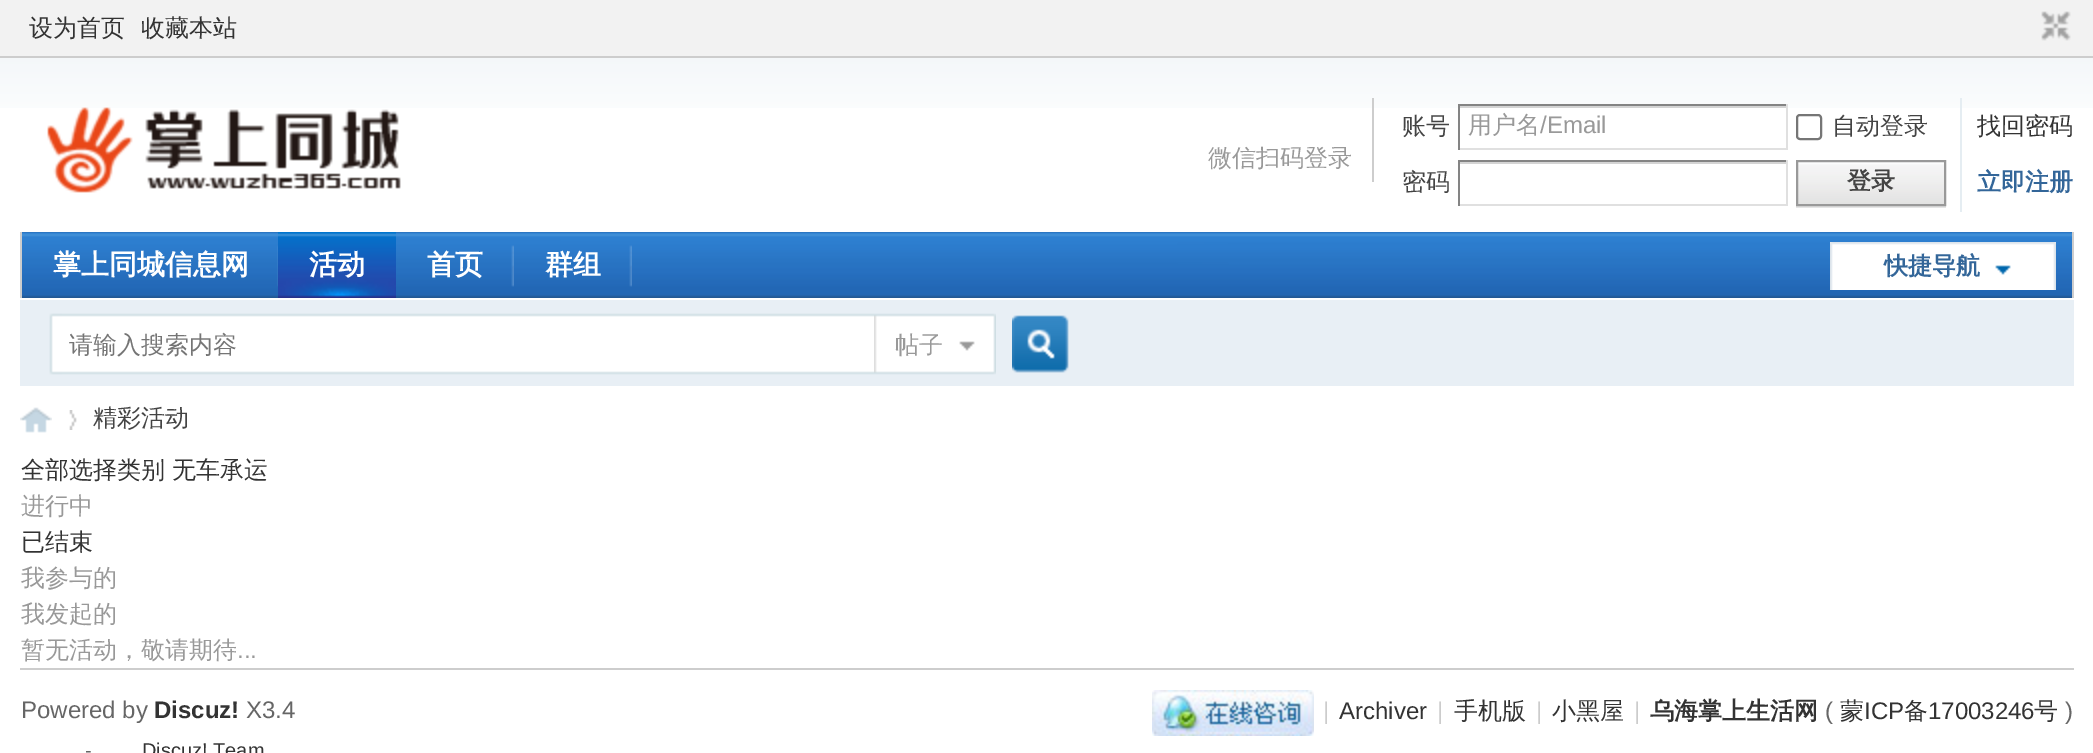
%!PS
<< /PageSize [2093 753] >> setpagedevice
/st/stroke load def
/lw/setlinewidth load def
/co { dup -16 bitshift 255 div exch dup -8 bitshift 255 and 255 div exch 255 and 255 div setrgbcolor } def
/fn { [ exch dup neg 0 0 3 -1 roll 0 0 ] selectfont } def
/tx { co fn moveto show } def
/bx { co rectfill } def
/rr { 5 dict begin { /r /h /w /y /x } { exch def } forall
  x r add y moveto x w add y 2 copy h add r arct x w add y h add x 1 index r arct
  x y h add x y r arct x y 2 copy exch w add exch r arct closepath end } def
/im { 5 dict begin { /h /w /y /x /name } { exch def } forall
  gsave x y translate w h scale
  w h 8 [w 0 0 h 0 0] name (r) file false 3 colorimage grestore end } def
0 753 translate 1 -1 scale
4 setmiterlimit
0 0 2093 753 16#FFFFFF bx
(media/1.raw) 0 58 2093 50 im
0 0 2093 56 16#F2F2F2 bx
0 56 2093 2 16#CDCDCD bx
(media/2.raw) 2041 11 30 30 im
(media/3.raw) 47 107 354 86 im
1372 98 2 84 16#CDCDCD bx
1458 106 330 2 16#D4D4D4 bx
1458 104 330 2 16#848484 bx
1786 104 2 46 16#E0E0E0 bx
1458 148 330 2 16#E0E0E0 bx
1458 104 2 46 16#848484 bx
16#767676 co
2 lw
1797 115 24 24 3 rr st
1458 162 330 2 16#D4D4D4 bx
1458 160 330 2 16#848484 bx
1786 160 2 46 16#E0E0E0 bx
1458 204 330 2 16#E0E0E0 bx
1458 160 2 46 16#848484 bx
1960 98 2 114 16#E5EDF2 bx
1796 206 150 2 16#E5E5E5 bx
(media/4.raw) 1798 162 146 42 im
16#999999 co
1797 161 148 44 rectstroke
(media/5.raw) 22 232 2050 66 im
2072 232 2 66 16#CDCDCD bx
20 232 2 66 16#CDCDCD bx
(media/6.raw) 277 245 1 42 im
(media/7.raw) 278 232 118 66 im
(media/8.raw) 511 245 3 42 im
(media/8.raw) 629 245 3 42 im
(media/9.raw) 1830 242 226 48 im
20 300 2054 86 16#E8EFF5 bx
(media/10.raw) 49 313 13 62 im
(media/11.raw) 62 313 812 62 im
(media/12.raw) 874 313 122 62 im
(media/13.raw) 1012 315 57 58 im
(media/14.raw) 20 407 32 26 im
(media/15.raw) 69 410 8 20 im
20 668 2054 2 16#CDCDCD bx
(media/16.raw) 1152 690 162 46 im
(设为首页) 29 36 /WenQuanYiZenHei-Medium 24 16#333333 tx
(收藏本站) 141 36 /WenQuanYiZenHei-Medium 24 16#333333 tx
(微信扫码登录) 1208 166 /WenQuanYiZenHei-Medium 24 16#999999 tx
(账号) 1402 134 /WenQuanYiZenHei-Medium 24 16#444444 tx
(用户名) 1468 133 /WenQuanYiZenHei-Medium 24 16#999999 tx
(/Email) 1540 133 /LiberationSans-Regular 24 16#999999 tx
(自动登录) 1832 134 /WenQuanYiZenHei-Medium 24 16#444444 tx
(找回密码) 1977 134 /WenQuanYiZenHei-Medium 24 16#333333 tx
(密码) 1402 190 /WenQuanYiZenHei-Medium 24 16#444444 tx
(登录) 1847 189 /WenQuanYiZenHei-Bold 24 16#444444 tx
(立即注册) 1977 190 /WenQuanYiZenHei-Bold 24 16#336699 tx
(掌上同城信息网) 53 274 /WenQuanYiZenHei-Bold 28 16#FFFFFF tx
(活动) 309 274 /WenQuanYiZenHei-Bold 28 16#FFFFFF tx
(首页) 427 274 /WenQuanYiZenHei-Bold 28 16#FFFFFF tx
(群组) 545 274 /WenQuanYiZenHei-Bold 28 16#FFFFFF tx
(快捷导航) 1884 274 /WenQuanYiZenHei-Bold 24 16#336699 tx
(请输入搜索内容) 69 353 /WenQuanYiZenHei-Medium 24 16#757575 tx
(帖子) 895 353 /WenQuanYiZenHei-Medium 24 16#999999 tx
(精彩活动) 93 426 /WenQuanYiZenHei-Medium 24 16#444444 tx
(全部选择类别) 21 478 /WenQuanYiZenHei-Medium 24 16#333333 tx
(无车承运) 172 478 /WenQuanYiZenHei-Medium 24 16#333333 tx
(进行中) 21 514 /WenQuanYiZenHei-Medium 24 16#999999 tx
(已结束) 21 550 /WenQuanYiZenHei-Medium 24 16#333333 tx
(我参与的) 21 586 /WenQuanYiZenHei-Medium 24 16#999999 tx
(我发起的) 21 622 /WenQuanYiZenHei-Medium 24 16#999999 tx
(暂无活动，敬请期待) 21 658 /WenQuanYiZenHei-Medium 24 16#999999 tx
(...) 237 658 /LiberationSans-Regular 24 16#999999 tx
(Powered by) 21 718 /LiberationSans-Regular 24 16#666666 tx
(Discuz!) 154 718 /LiberationSans-Bold 24 16#333333 tx
(X3.4) 246 718 /LiberationSans-Regular 24 16#666666 tx
(-) 85 757 /LiberationSans-Regular 20 16#666666 tx
(Discuz! Team) 142 757 /LiberationSans-Regular 20 16#333333 tx
(|) 1323 719 /LiberationSans-Regular 24 16#CCCCCC tx
(Archiver) 1339 719 /LiberationSans-Regular 24 16#333333 tx
(|) 1437 719 /LiberationSans-Regular 24 16#CCCCCC tx
(手机版) 1454 719 /WenQuanYiZenHei-Medium 24 16#333333 tx
(|) 1536 719 /LiberationSans-Regular 24 16#CCCCCC tx
(小黑屋) 1552 719 /WenQuanYiZenHei-Medium 24 16#333333 tx
(|) 1634 719 /LiberationSans-Regular 24 16#CCCCCC tx
(乌海掌上生活网) 1650 719 /WenQuanYiZenHei-Bold 24 16#333333 tx
(\() 1825 719 /LiberationSans-Regular 24 16#666666 tx
(蒙) 1840 719 /WenQuanYiZenHei-Medium 24 16#333333 tx
(ICP) 1864 719 /LiberationSans-Regular 24 16#333333 tx
(备) 1904 719 /WenQuanYiZenHei-Medium 24 16#333333 tx
(17003246) 1928 719 /LiberationSans-Regular 24 16#333333 tx
(号) 2034 719 /WenQuanYiZenHei-Medium 24 16#333333 tx
(\)) 2065 719 /LiberationSans-Regular 24 16#666666 tx
showpage
